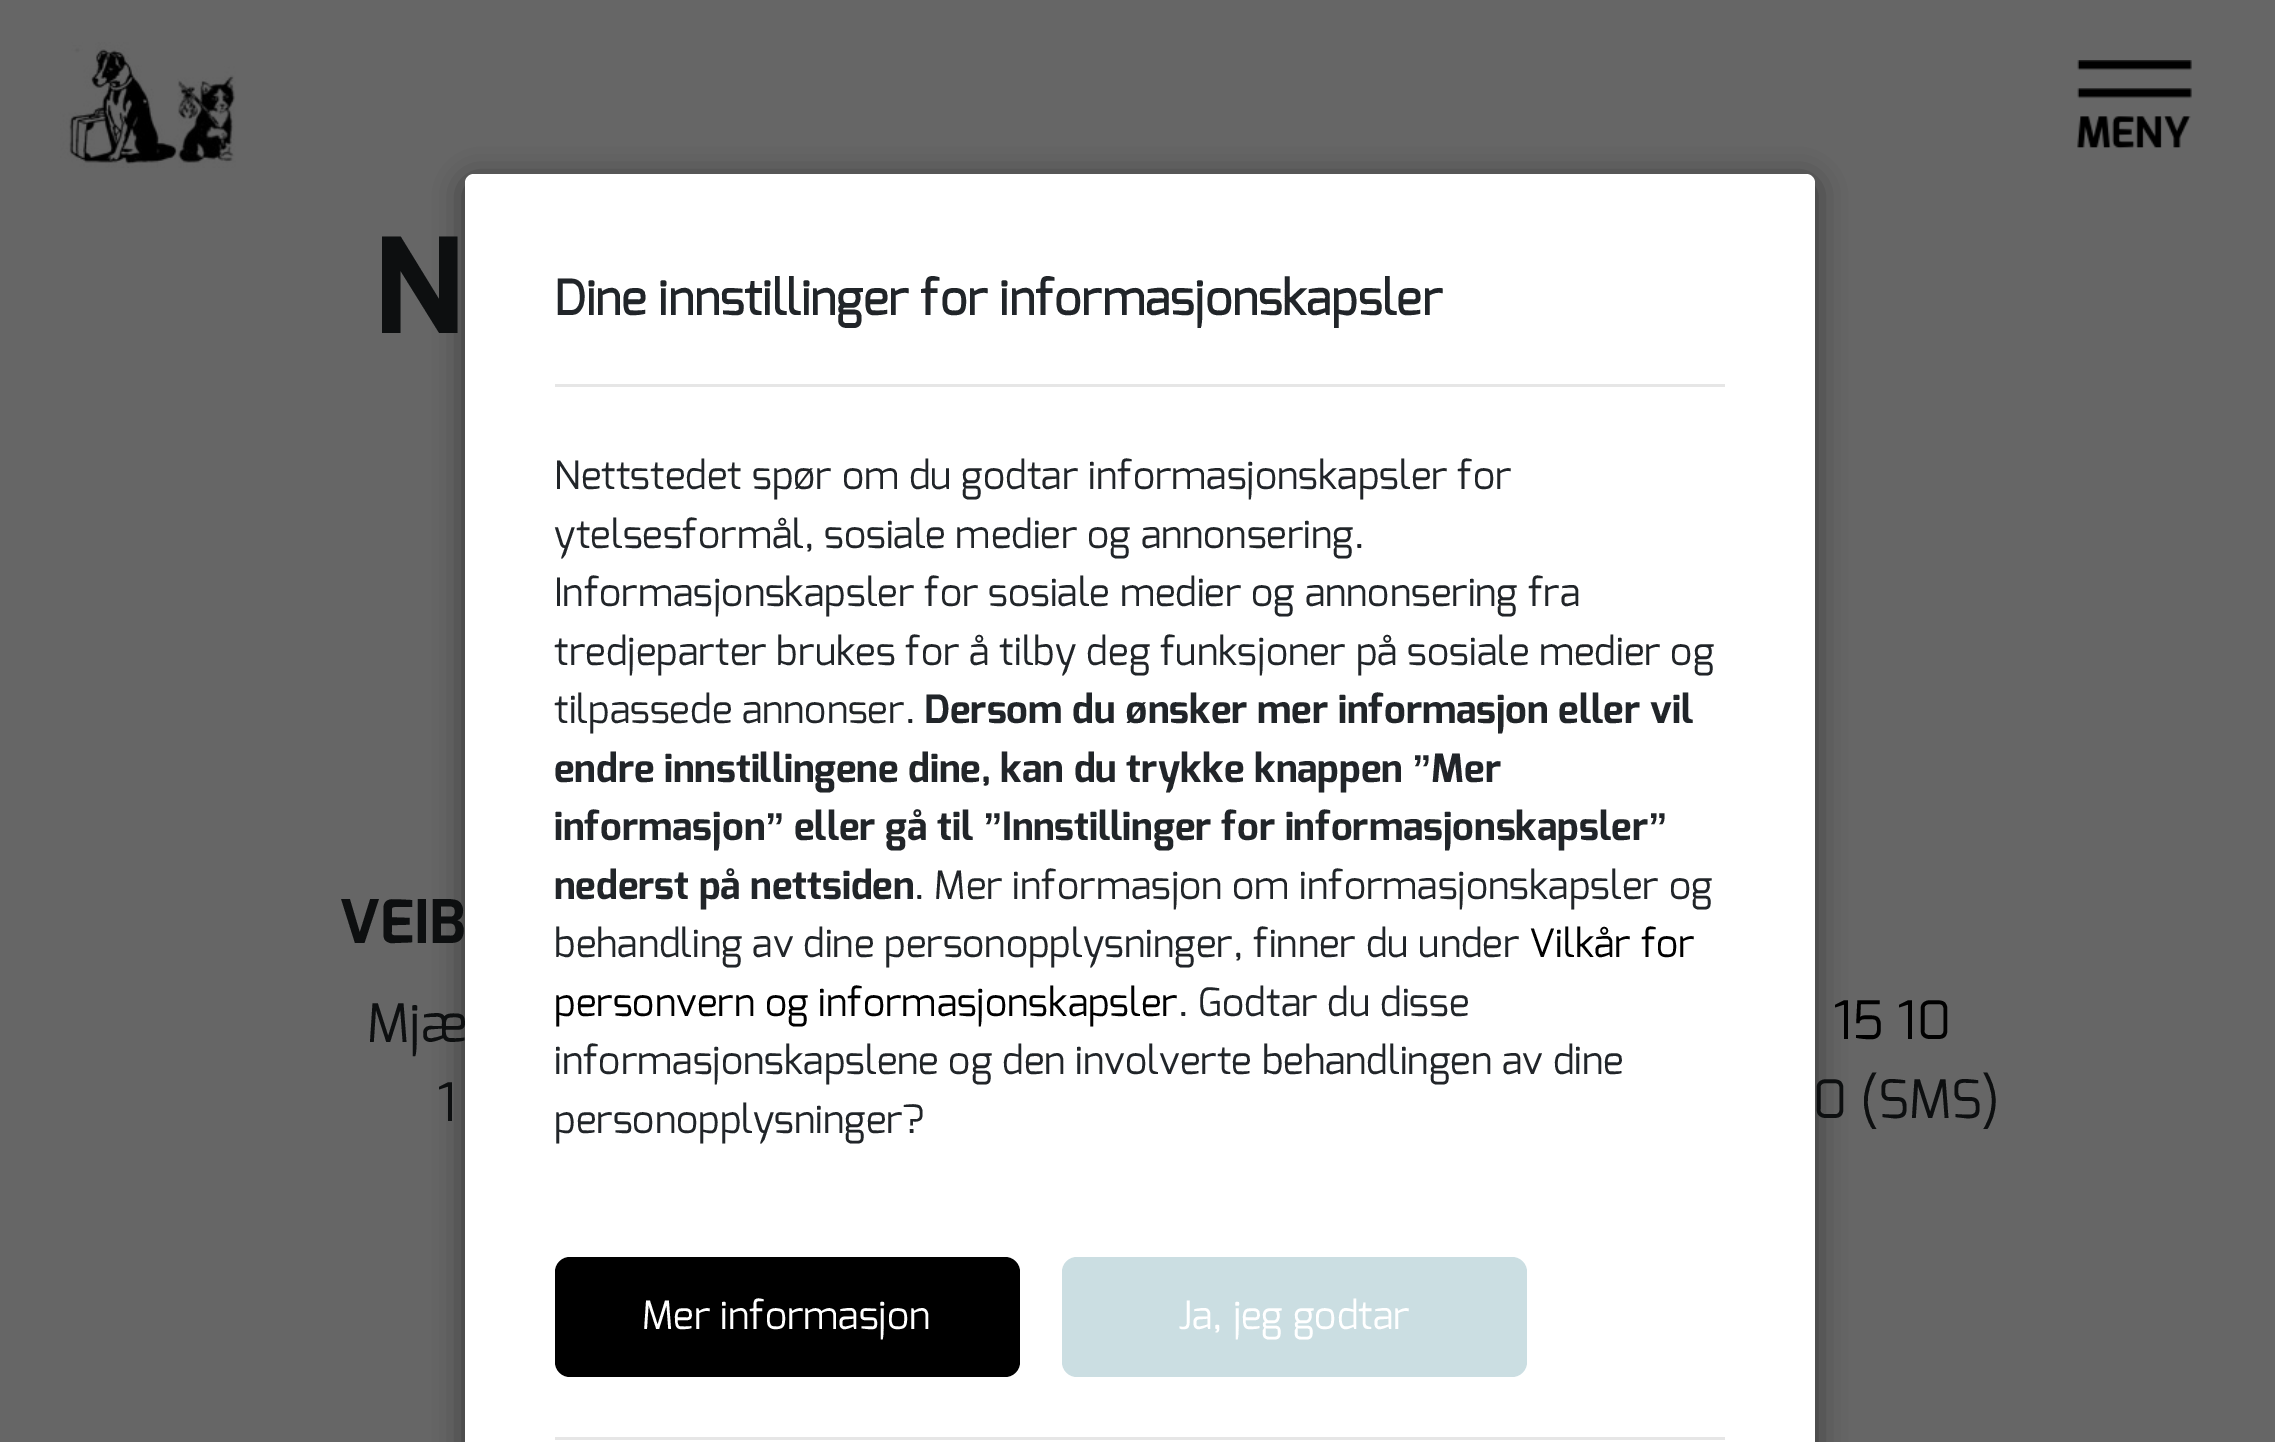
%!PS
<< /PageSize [2275 1442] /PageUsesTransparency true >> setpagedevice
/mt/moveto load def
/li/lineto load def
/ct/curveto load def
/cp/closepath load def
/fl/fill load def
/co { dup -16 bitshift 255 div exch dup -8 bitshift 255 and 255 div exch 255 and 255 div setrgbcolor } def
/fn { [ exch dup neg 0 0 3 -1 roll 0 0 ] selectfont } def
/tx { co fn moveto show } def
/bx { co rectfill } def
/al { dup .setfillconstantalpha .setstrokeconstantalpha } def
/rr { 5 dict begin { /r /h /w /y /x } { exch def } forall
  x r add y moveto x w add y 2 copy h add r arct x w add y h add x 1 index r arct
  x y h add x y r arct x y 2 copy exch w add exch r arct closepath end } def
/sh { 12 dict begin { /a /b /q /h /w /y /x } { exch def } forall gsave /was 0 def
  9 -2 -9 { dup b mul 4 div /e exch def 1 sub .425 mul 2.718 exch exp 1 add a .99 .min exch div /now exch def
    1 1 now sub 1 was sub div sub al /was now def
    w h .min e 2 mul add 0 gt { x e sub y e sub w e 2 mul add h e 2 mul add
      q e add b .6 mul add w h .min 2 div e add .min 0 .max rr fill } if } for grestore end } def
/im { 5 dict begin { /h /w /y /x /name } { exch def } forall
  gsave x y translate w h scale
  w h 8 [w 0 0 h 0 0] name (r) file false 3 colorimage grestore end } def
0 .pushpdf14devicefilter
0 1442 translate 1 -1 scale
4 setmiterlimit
0 0 2275 1442 16#666666 bx
(media/1.raw) 60 42 176 126 im
(media/2.raw) 2077 60 115 89 im
16#000000 co
465 180 1350 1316 9 15 .5 sh
16#FFFFFF co
474 174 mt 1806 174 li 1811 174 1815 178 1815 183 ct 1815 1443 li 465 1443 li 465 183 li 465 178 469 174 474 174 ct cp fl
555 384 1170 3 16#E6E6E6 bx
555 1437 1170 3 16#E6E6E6 bx
16#000000 co
555 1257 465 120 15 rr fl
16#CBDEE2 co
1062 1257 465 120 15 rr fl
(N) 374 333 /Exo-Bold 132 16#0D0F10 tx
(VEIB) 339 943 /Exo-Bold 60 16#0D0F10 tx
(Mjæ) 367 1042 /Exo-Regular 53 16#0D0F10 tx
(1) 437 1121 /Exo-Regular 53 16#0D0F10 tx
(15 10) 1833 1039 /Exo-Regular 53 16#000000 tx
(0 \(SMS\)) 1813 1118 /Exo-Regular 53 16#0D0F10 tx
(Dine innstillinger for informasjonskapsler) 554 315 /Exo2-Bold 48 16#212529 tx
(Nettstedet spør om du godtar informasjonskapsler for) 554 489 /Exo-Regular 39 16#212529 tx
(ytelsesformål, sosiale medier og annonsering.) 554 548 /Exo-Regular 39 16#212529 tx
(Informasjonskapsler for sosiale medier og annonsering fra) 554 606 /Exo-Regular 39 16#212529 tx
(tredjeparter brukes for å tilby deg funksjoner på sosiale medier og) 554 665 /Exo-Regular 39 16#212529 tx
(tilpassede annonser.) 554 723 /Exo-Regular 39 16#212529 tx
(Dersom du ønsker mer informasjon eller vil) 924 723 /Exo-Bold 39 16#212529 tx
(endre innstillingene dine, kan du trykke knappen) 554 782 /Exo-Bold 39 16#212529 tx
(”) 1412 782 /LiberationSans-Bold 39 16#212529 tx
(Mer) 1431 782 /Exo-Bold 39 16#212529 tx
(informasjon) 554 840 /Exo-Bold 39 16#212529 tx
(”) 765 840 /LiberationSans-Bold 39 16#212529 tx
(eller gå til) 794 840 /Exo-Bold 39 16#212529 tx
(”) 983 840 /LiberationSans-Bold 39 16#212529 tx
(Innstillinger for informasjonskapsler) 1002 840 /Exo-Bold 39 16#212529 tx
(”) 1648 840 /LiberationSans-Bold 39 16#212529 tx
(nederst på nettsiden) 554 899 /Exo-Bold 39 16#212529 tx
(. Mer informasjon om informasjonskapsler og) 914 899 /Exo-Regular 39 16#212529 tx
(behandling av dine personopplysninger, finner du under) 554 957 /Exo-Regular 39 16#212529 tx
(Vilkår for) 1529 957 /Exo-Regular 39 16#000000 tx
(personvern og informasjonskapsler) 554 1016 /Exo-Regular 39 16#000000 tx
(. Godtar du disse) 1178 1016 /Exo-Regular 39 16#212529 tx
(informasjonskapslene og den involverte behandlingen av dine) 554 1074 /Exo-Regular 39 16#212529 tx
(personopplysninger?) 554 1133 /Exo-Regular 39 16#212529 tx
(Mer informasjon) 642 1329 /Exo-Regular 39 16#FFFFFF tx
(Ja, jeg godtar) 1178 1329 /Exo-Regular 39 16#FFFFFF tx
.poppdf14devicefilter showpage
